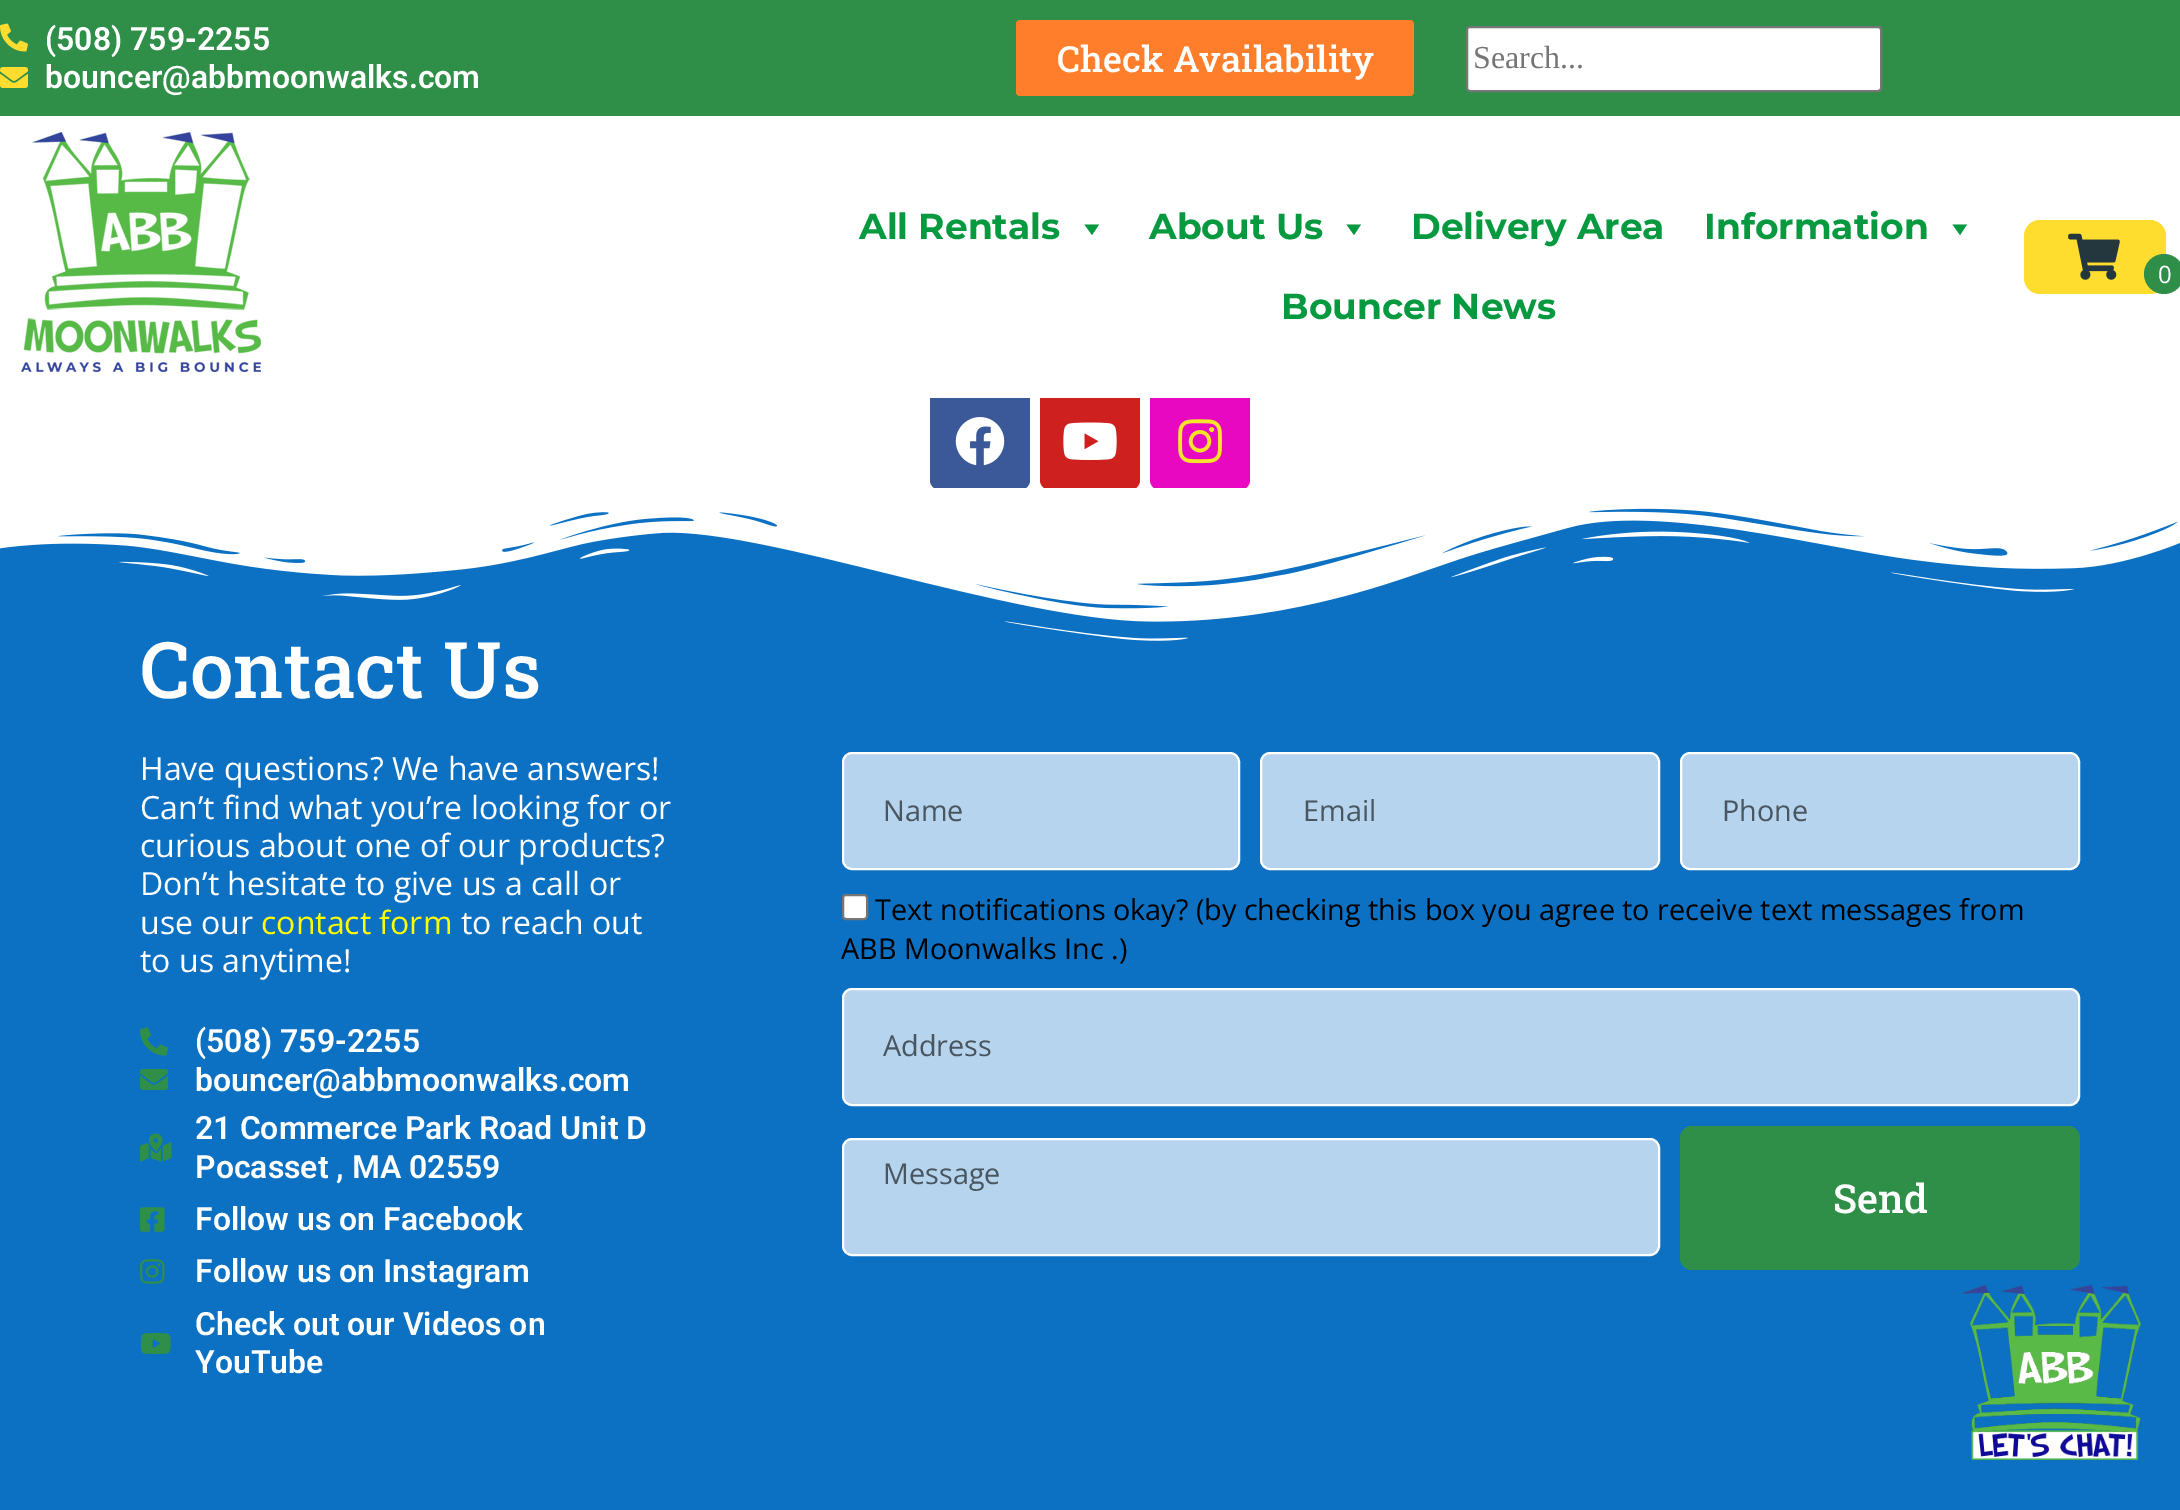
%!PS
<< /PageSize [2180 1510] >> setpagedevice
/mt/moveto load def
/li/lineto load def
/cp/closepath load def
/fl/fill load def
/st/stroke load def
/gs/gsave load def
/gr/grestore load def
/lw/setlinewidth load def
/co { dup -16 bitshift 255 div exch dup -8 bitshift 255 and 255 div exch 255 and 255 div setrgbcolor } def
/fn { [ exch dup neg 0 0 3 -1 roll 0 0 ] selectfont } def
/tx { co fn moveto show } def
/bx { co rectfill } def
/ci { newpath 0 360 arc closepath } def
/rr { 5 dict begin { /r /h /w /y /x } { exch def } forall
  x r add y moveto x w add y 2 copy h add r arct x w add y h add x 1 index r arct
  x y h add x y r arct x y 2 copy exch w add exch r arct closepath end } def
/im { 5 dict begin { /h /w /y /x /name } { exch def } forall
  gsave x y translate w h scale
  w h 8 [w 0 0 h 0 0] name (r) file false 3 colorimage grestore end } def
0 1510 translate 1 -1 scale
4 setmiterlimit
0 0 2180 1510 16#FFFFFF bx
0 0 2180 116 16#2F8F49 bx
(media/1.raw) 0 23 28 29 im
(media/2.raw) 0 67 28 21 im
16#FF7E2B co
1016 20 398 76 4 rr fl
16#FFFFFF co
1467 27 414 64 3 rr gs fl gr
16#767676 co
2 lw
st
16#3B5998 co
930 390 100 100 10 rr fl
16#CD201F co
1040 390 100 100 10 rr fl
16#E908C1 co
1150 390 100 100 10 rr fl
930 390 320 8 16#FFFFFF bx
(media/3.raw) 21 132 240 240 im
16#079940 co
1099 224.5 mt 1092 235 li 1084.5 224.5 li cp fl
1361 224.5 mt 1354 235 li 1346.5 224.5 li cp fl
1967 224.5 mt 1960 235 li 1952.5 224.5 li cp fl
16#FFDD2F co
2024 220 142 74 16 rr fl
(media/4.raw) 2068 233 52 47 im
16#2F8F49 co
2164 274 20 ci fl
(media/5.raw) 955 417 50 49 im
(media/6.raw) 1063 422 54 38 im
(media/7.raw) 1178 419 44 45 im
0 508 2180 1002 16#0C71C3 bx
(media/8.raw) 0 488 2180 153 im
(media/9.raw) 140 1027 28 29 im
(media/10.raw) 140 1069 28 21 im
(media/11.raw) 140 1133 32 29 im
(media/12.raw) 140 1207 25 25 im
(media/13.raw) 140 1259 25 25 im
(media/14.raw) 140 1333 31 21 im
(media/15.raw) 1961 1284 181 176 im
16#B6D4ED co
843 753 396 116 9 rr gs fl gr
16#FFFFFF co
st
16#B6D4ED co
1261 753 398 116 9 rr gs fl gr
16#FFFFFF co
st
16#B6D4ED co
1681 753 398 116 9 rr gs fl gr
16#FFFFFF co
st
843 895 24 24 3 rr gs fl gr
16#767676 co
st
16#B6D4ED co
843 989 1236 116 9 rr gs fl gr
16#FFFFFF co
st
16#B6D4ED co
843 1139 816 116 9 rr gs fl gr
16#FFFFFF co
st
16#2F8F49 co
1680 1126 400 144 12 rr fl
(\(508\) 759-2255) 45 50 /Roboto-SemiBold 32 16#FFFFFF tx
(bouncer@abbmoonwalks.com) 45 88 /Roboto-SemiBold 32 16#FFFFFF tx
(Check Availability) 1057 72 /RobotoSlab-Medium 36 16#FFFFFF tx
(Search...) 1473 68 /LiberationSerif-Regular 32 16#757575 tx
(All Rentals) 859 239 /Montserrat-Bold 36 16#079940 tx
(About Us) 1149 239 /Montserrat-Bold 36 16#079940 tx
(Delivery Area) 1411 239 /Montserrat-Bold 36 16#079940 tx
(Information) 1704 239 /Montserrat-Bold 36 16#079940 tx
(Bouncer News) 1281 319 /Montserrat-Bold 36 16#079940 tx
(0) 2158 283 /OpenSans-Regular 24 16#FFFFFF tx
(Contact Us) 140 698 /RobotoSlab-Medium 78 16#FFFFFF tx
(Have questions? We have answers!) 140 780 /OpenSans-Regular 32 16#FFFFFF tx
(Can’t find what you’re looking for or) 140 819 /OpenSans-Regular 32 16#FFFFFF tx
(curious about one of our products?) 140 857 /OpenSans-Regular 32 16#FFFFFF tx
(Don’t hesitate to give us a call or) 140 895 /OpenSans-Regular 32 16#FFFFFF tx
(use our) 140 934 /OpenSans-Regular 32 16#FFFFFF tx
(contact form) 261 934 /OpenSans-Regular 32 16#FFFF00 tx
(to reach out) 461 934 /OpenSans-Regular 32 16#FFFFFF tx
(to us anytime!) 140 972 /OpenSans-Regular 32 16#FFFFFF tx
(\(508\) 759-2255) 195 1052 /Roboto-SemiBold 32 16#FFFFFF tx
(bouncer@abbmoonwalks.com) 195 1091 /Roboto-SemiBold 32 16#FFFFFF tx
(21 Commerce Park Road Unit D) 195 1139 /Roboto-SemiBold 32 16#FFFFFF tx
(Pocasset , MA 02559) 195 1178 /Roboto-SemiBold 32 16#FFFFFF tx
(Follow us on Facebook) 195 1230 /Roboto-SemiBold 32 16#FFFFFF tx
(Follow us on Instagram) 195 1282 /Roboto-SemiBold 32 16#FFFFFF tx
(Check out our Videos on) 195 1335 /Roboto-SemiBold 32 16#FFFFFF tx
(YouTube) 195 1373 /Roboto-SemiBold 32 16#FFFFFF tx
(Name) 883 821 /OpenSans-Regular 28.8 16#49555F tx
(Email) 1303 821 /OpenSans-Regular 28.8 16#49555F tx
(Phone) 1722 821 /OpenSans-Regular 28.8 16#49555F tx
(Text notifications okay? \(by checking this box you agree to receive text messages from) 875 920 /OpenSans-Regular 28.8 16#000000 tx
(ABB Moonwalks Inc .\)) 841 959 /OpenSans-Regular 28.8 16#000000 tx
(Address) 883 1056 /OpenSans-Regular 28.8 16#49555F tx
(Message) 883 1184 /OpenSans-Regular 28.8 16#49555F tx
(Send) 1833 1213 /RobotoSlab-Medium 40 16#FFFFFF tx
showpage
